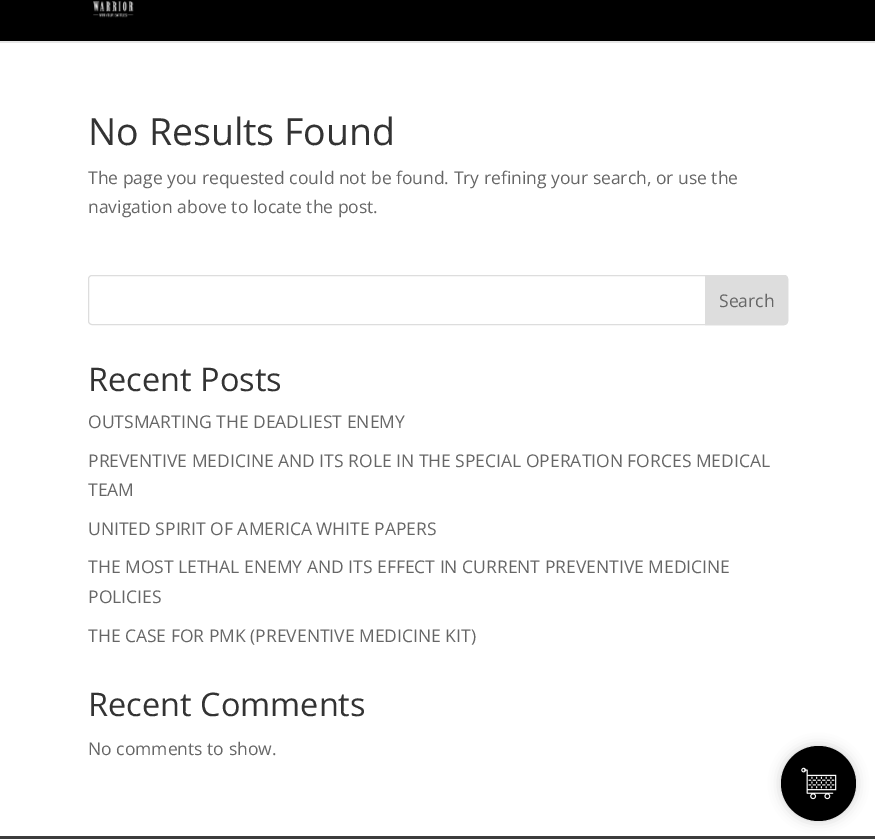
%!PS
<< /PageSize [875 839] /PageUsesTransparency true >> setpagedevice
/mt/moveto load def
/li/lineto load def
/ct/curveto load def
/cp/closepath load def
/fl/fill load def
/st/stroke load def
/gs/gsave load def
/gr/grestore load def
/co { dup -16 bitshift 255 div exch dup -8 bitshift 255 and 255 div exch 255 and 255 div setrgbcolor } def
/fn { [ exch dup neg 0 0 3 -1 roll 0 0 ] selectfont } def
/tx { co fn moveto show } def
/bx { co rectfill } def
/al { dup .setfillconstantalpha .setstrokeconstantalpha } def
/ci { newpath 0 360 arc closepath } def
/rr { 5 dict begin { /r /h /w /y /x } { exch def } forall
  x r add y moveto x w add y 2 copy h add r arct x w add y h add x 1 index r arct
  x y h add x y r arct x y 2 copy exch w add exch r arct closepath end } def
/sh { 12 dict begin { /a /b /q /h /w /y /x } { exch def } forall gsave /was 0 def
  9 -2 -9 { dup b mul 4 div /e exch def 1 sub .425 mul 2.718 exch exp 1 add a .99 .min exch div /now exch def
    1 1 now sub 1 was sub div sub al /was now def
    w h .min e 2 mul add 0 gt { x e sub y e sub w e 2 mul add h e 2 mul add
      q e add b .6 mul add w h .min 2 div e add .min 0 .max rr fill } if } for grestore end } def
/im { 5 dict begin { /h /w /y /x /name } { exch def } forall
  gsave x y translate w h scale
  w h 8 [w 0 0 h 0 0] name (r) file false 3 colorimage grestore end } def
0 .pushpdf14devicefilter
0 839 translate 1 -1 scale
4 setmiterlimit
0 0 875 839 16#FFFFFF bx
0 41 875 2 16#E6E6E6 bx
0 0 875 41 16#000000 bx
(media/1.raw) 93 1 41 17 im
16#DDDDDD co
88.5 275.5 699 49 3.5 rr st
705.5 275.5 mt 784 275.5 li 786 275.5 787.5 277 787.5 279 ct 787.5 321 li 787.5 323 786 324.5 784 324.5 ct 705.5 324.5 li cp gs fl gr
st
0 836 875 3 16#3C3C3C bx
16#000000 co
781 746 75 75 37.5 6 .19 sh
818.5 783.5 37.5 ci fl
(media/2.raw) 801 767 36 33 im
(No Results Found) 88 145 /OpenSans-Regular 37.5 16#333333 tx
(The page you requested could not be found. Try refining your search, or use the) 88 184 /OpenSans-Regular 17.5 16#666666 tx
(navigation above to locate the post.) 88 213 /OpenSans-Regular 17.5 16#666666 tx
(Search) 719 307 /OpenSans-Regular 17.5 16#666666 tx
(Recent Posts) 88 391 /OpenSans-Regular 32.5 16#333333 tx
(OUTSMARTING THE DEADLIEST ENEMY) 88 428 /OpenSans-Regular 17.5 16#666666 tx
(PREVENTIVE MEDICINE AND ITS ROLE IN THE SPECIAL OPERATION FORCES MEDICAL) 88 467 /OpenSans-Regular 17.5 16#666666 tx
(TEAM) 88 496 /OpenSans-Regular 17.5 16#666666 tx
(UNITED SPIRIT OF AMERICA WHITE PAPERS) 88 535 /OpenSans-Regular 17.5 16#666666 tx
(THE MOST LETHAL ENEMY AND ITS EFFECT IN CURRENT PREVENTIVE MEDICINE) 88 573 /OpenSans-Regular 17.5 16#666666 tx
(POLICIES) 88 603 /OpenSans-Regular 17.5 16#666666 tx
(THE CASE FOR PMK \(PREVENTIVE MEDICINE KIT\)) 88 642 /OpenSans-Regular 17.5 16#666666 tx
(Recent Comments) 88 716 /OpenSans-Regular 32.5 16#333333 tx
(No comments to show.) 88 755 /OpenSans-Regular 17.5 16#666666 tx
.poppdf14devicefilter showpage
